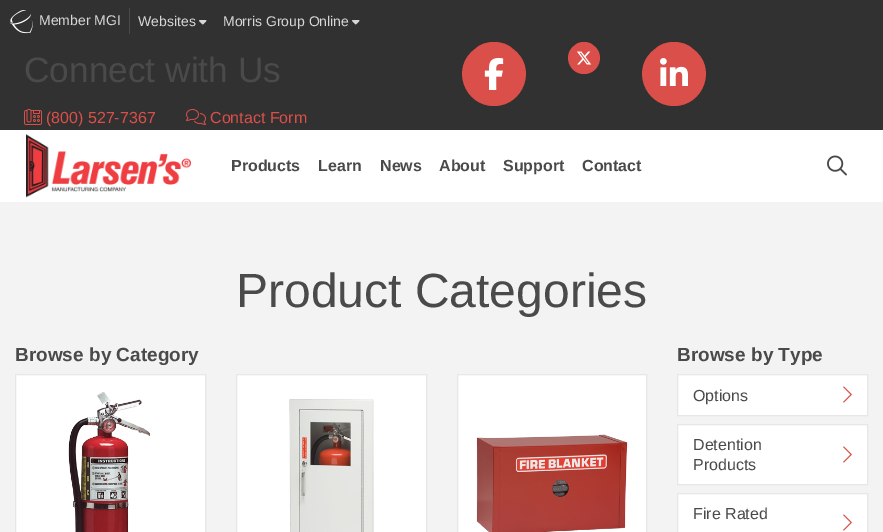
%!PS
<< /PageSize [883 532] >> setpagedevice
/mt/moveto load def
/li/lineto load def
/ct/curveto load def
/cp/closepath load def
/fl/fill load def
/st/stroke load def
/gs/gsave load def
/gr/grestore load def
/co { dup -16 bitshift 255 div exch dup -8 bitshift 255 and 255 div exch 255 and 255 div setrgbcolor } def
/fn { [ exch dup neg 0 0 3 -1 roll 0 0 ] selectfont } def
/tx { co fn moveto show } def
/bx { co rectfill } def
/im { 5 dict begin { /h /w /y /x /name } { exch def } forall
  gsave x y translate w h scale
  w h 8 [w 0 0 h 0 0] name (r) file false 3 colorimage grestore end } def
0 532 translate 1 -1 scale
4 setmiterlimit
0 0 883 532 16#FFFFFF bx
0 0 883 130 16#313131 bx
129 8 1 26 16#4A4A4A bx
(media/1.raw) 9 10 24 24 im
(media/2.raw) 199 20 8 5 im
(media/2.raw) 352 20 8 5 im
16#DA4F49 co
494 106 mt 524 106 538 67 513 49 ct 508 44 501 42 494 42 ct 487 42 480 44 475 49 ct 450 67 464 106 494 106 ct cp fl
(media/3.raw) 484 58 20 32 im
584 74 mt 599 74 606 54.5 593.5 45.5 ct 591 43 587.5 42 584 42 ct 580.5 42 577 43 574.5 45.5 ct 562 54.5 569 74 584 74 ct cp fl
(media/4.raw) 577 51 15 14 im
674 106 mt 704 106 718 67 693 49 ct 688 44 681 42 674 42 ct 667 42 660 44 655 49 ct 630 67 644 106 674 106 ct cp fl
(media/5.raw) 660 58 28 28 im
(media/6.raw) 24 109 18 16 im
(media/7.raw) 186 109 20 16 im
(media/8.raw) 26 134 165 64 im
(media/9.raw) 827 155 20 21 im
0 202 883 330 16#F3F3F3 bx
16#FFFFFF co
15.5 374.5 mt 205.5 374.5 li 205.5 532.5 li 15.5 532.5 li cp gs fl gr
16#E7E7E7 co
st
(media/10.raw) 68 392 83 140 im
16#FFFFFF co
236.5 374.5 mt 426.5 374.5 li 426.5 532.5 li 236.5 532.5 li cp gs fl gr
16#E7E7E7 co
st
(media/11.raw) 289 399 85 133 im
16#FFFFFF co
457.5 374.5 mt 646.5 374.5 li 646.5 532.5 li 457.5 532.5 li cp gs fl gr
16#E7E7E7 co
st
(media/12.raw) 476 434 152 98 im
16#FFFFFF co
677.5 374.5 mt 867.5 374.5 li 867.5 415.5 li 677.5 415.5 li cp gs fl gr
16#E7E7E7 co
st
(media/13.raw) 843 386 9 17 im
16#FFFFFF co
677.5 424.5 mt 867.5 424.5 li 867.5 484.5 li 677.5 484.5 li cp gs fl gr
16#E7E7E7 co
st
(media/13.raw) 843 446 9 17 im
16#FFFFFF co
677.5 493.5 mt 867.5 493.5 li 867.5 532.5 li 677.5 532.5 li cp gs fl gr
16#E7E7E7 co
st
(media/13.raw) 843 514 9 17 im
(Member MGI) 39 25 /LiberationSans-Regular 14 16#D7D7D7 tx
(Websites) 138 26 /LiberationSans-Regular 14 16#D7D7D7 tx
(Morris Group Online) 223 26 /LiberationSans-Regular 14 16#D7D7D7 tx
(Connect with Us) 24 82 /LiberationSans-Regular 35.25 16#4A4A4A tx
(\(800\) 527-7367) 46 123 /LiberationSans-Regular 16 16#DA4F49 tx
(Contact Form) 210 123 /LiberationSans-Regular 16 16#DA4F49 tx
(Products) 231 171 /LiberationSans-Bold 16 16#4A4A4A tx
(Learn) 318 171 /LiberationSans-Bold 16 16#4A4A4A tx
(News) 380 171 /LiberationSans-Bold 16 16#4A4A4A tx
(About) 439 171 /LiberationSans-Bold 16 16#4A4A4A tx
(Support) 503 171 /LiberationSans-Bold 16 16#4A4A4A tx
(Contact) 582 171 /LiberationSans-Bold 16 16#4A4A4A tx
(Product Categories) 236 307 /LiberationSans-Regular 48 16#4A4A4A tx
(Browse by Category) 15 361 /LiberationSans-Bold 19 16#4A4A4A tx
(Browse by Type) 677 361 /LiberationSans-Bold 19 16#4A4A4A tx
(Options) 693 401 /LiberationSans-Regular 16 16#4A4A4A tx
(Detention) 693 450 /LiberationSans-Regular 16 16#4A4A4A tx
(Products) 693 470 /LiberationSans-Regular 16 16#4A4A4A tx
(Fire Rated) 693 519 /LiberationSans-Regular 16 16#4A4A4A tx
showpage
